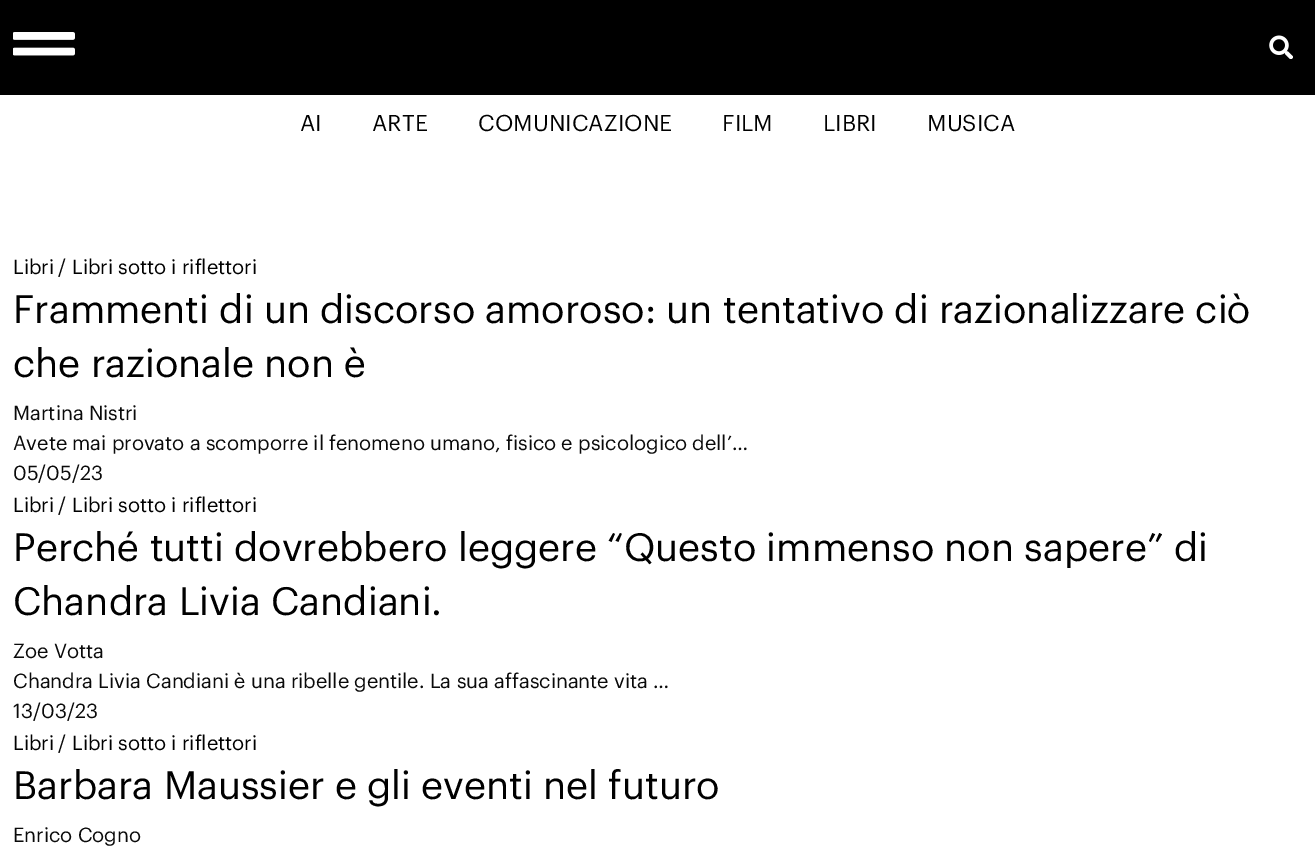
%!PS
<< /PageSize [1315 849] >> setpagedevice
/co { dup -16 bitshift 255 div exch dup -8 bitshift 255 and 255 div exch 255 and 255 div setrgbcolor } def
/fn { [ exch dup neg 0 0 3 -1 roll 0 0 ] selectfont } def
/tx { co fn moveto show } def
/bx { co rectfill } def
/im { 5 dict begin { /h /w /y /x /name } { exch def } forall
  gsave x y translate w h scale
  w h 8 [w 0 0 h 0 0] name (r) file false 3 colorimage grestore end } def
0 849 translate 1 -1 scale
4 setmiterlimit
0 0 1315 849 16#FFFFFF bx
0 0 1315 95 16#000000 bx
(media/1.raw) 13 32 62 24 im
(media/2.raw) 1269 35 24 24 im
(AI) 300 131 /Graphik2-Regular 22.5 16#000000 tx
(ARTE) 372 131 /Graphik2-Regular 22.5 16#000000 tx
(COMUNICAZIONE) 478 131 /Graphik2-Regular 22.5 16#000000 tx
(FILM) 722 131 /Graphik2-Regular 22.5 16#000000 tx
(LIBRI) 823 131 /Graphik2-Regular 22.5 16#000000 tx
(MUSICA) 927 131 /Graphik2-Regular 22.5 16#000000 tx
(Libri) 13 274 /Graphik-Regular 20 16#000000 tx
(/) 58 274 /Graphik-Regular 20 16#0A0A0A tx
(Libri sotto i riflettori) 72 274 /Graphik-Regular 20 16#000000 tx
(Frammenti di un discorso amoroso: un tentativo di razionalizzare ciò) 13 323 /Graphik-Regular 38.75 16#000000 tx
(che razionale non è) 13 377 /Graphik-Regular 38.75 16#000000 tx
(Martina Nistri) 13 420 /Graphik-Regular 20 16#0A0A0A tx
(Avete mai provato a scomporre il fenomeno umano, fisico e psicologico dell’…) 13 450 /Graphik-Regular 20 16#0A0A0A tx
(05/05/23) 13 480 /Graphik-Regular 20 16#0A0A0A tx
(Libri) 13 512 /Graphik-Regular 20 16#000000 tx
(/) 58 512 /Graphik-Regular 20 16#0A0A0A tx
(Libri sotto i riflettori) 72 512 /Graphik-Regular 20 16#000000 tx
(Perché tutti dovrebbero leggere “Questo immenso non sapere” di) 13 561 /Graphik-Regular 38.75 16#000000 tx
(Chandra Livia Candiani.) 13 615 /Graphik-Regular 38.75 16#000000 tx
(Zoe Votta) 13 658 /Graphik-Regular 20 16#0A0A0A tx
(Chandra Livia Candiani è una ribelle gentile. La sua affascinante vita …) 13 688 /Graphik-Regular 20 16#0A0A0A tx
(13/03/23) 13 718 /Graphik-Regular 20 16#0A0A0A tx
(Libri) 13 750 /Graphik-Regular 20 16#000000 tx
(/) 58 750 /Graphik-Regular 20 16#0A0A0A tx
(Libri sotto i riflettori) 72 750 /Graphik-Regular 20 16#000000 tx
(Barbara Maussier e gli eventi nel futuro) 13 799 /Graphik-Regular 38.75 16#000000 tx
(Enrico Cogno) 13 842 /Graphik-Regular 20 16#0A0A0A tx
showpage
